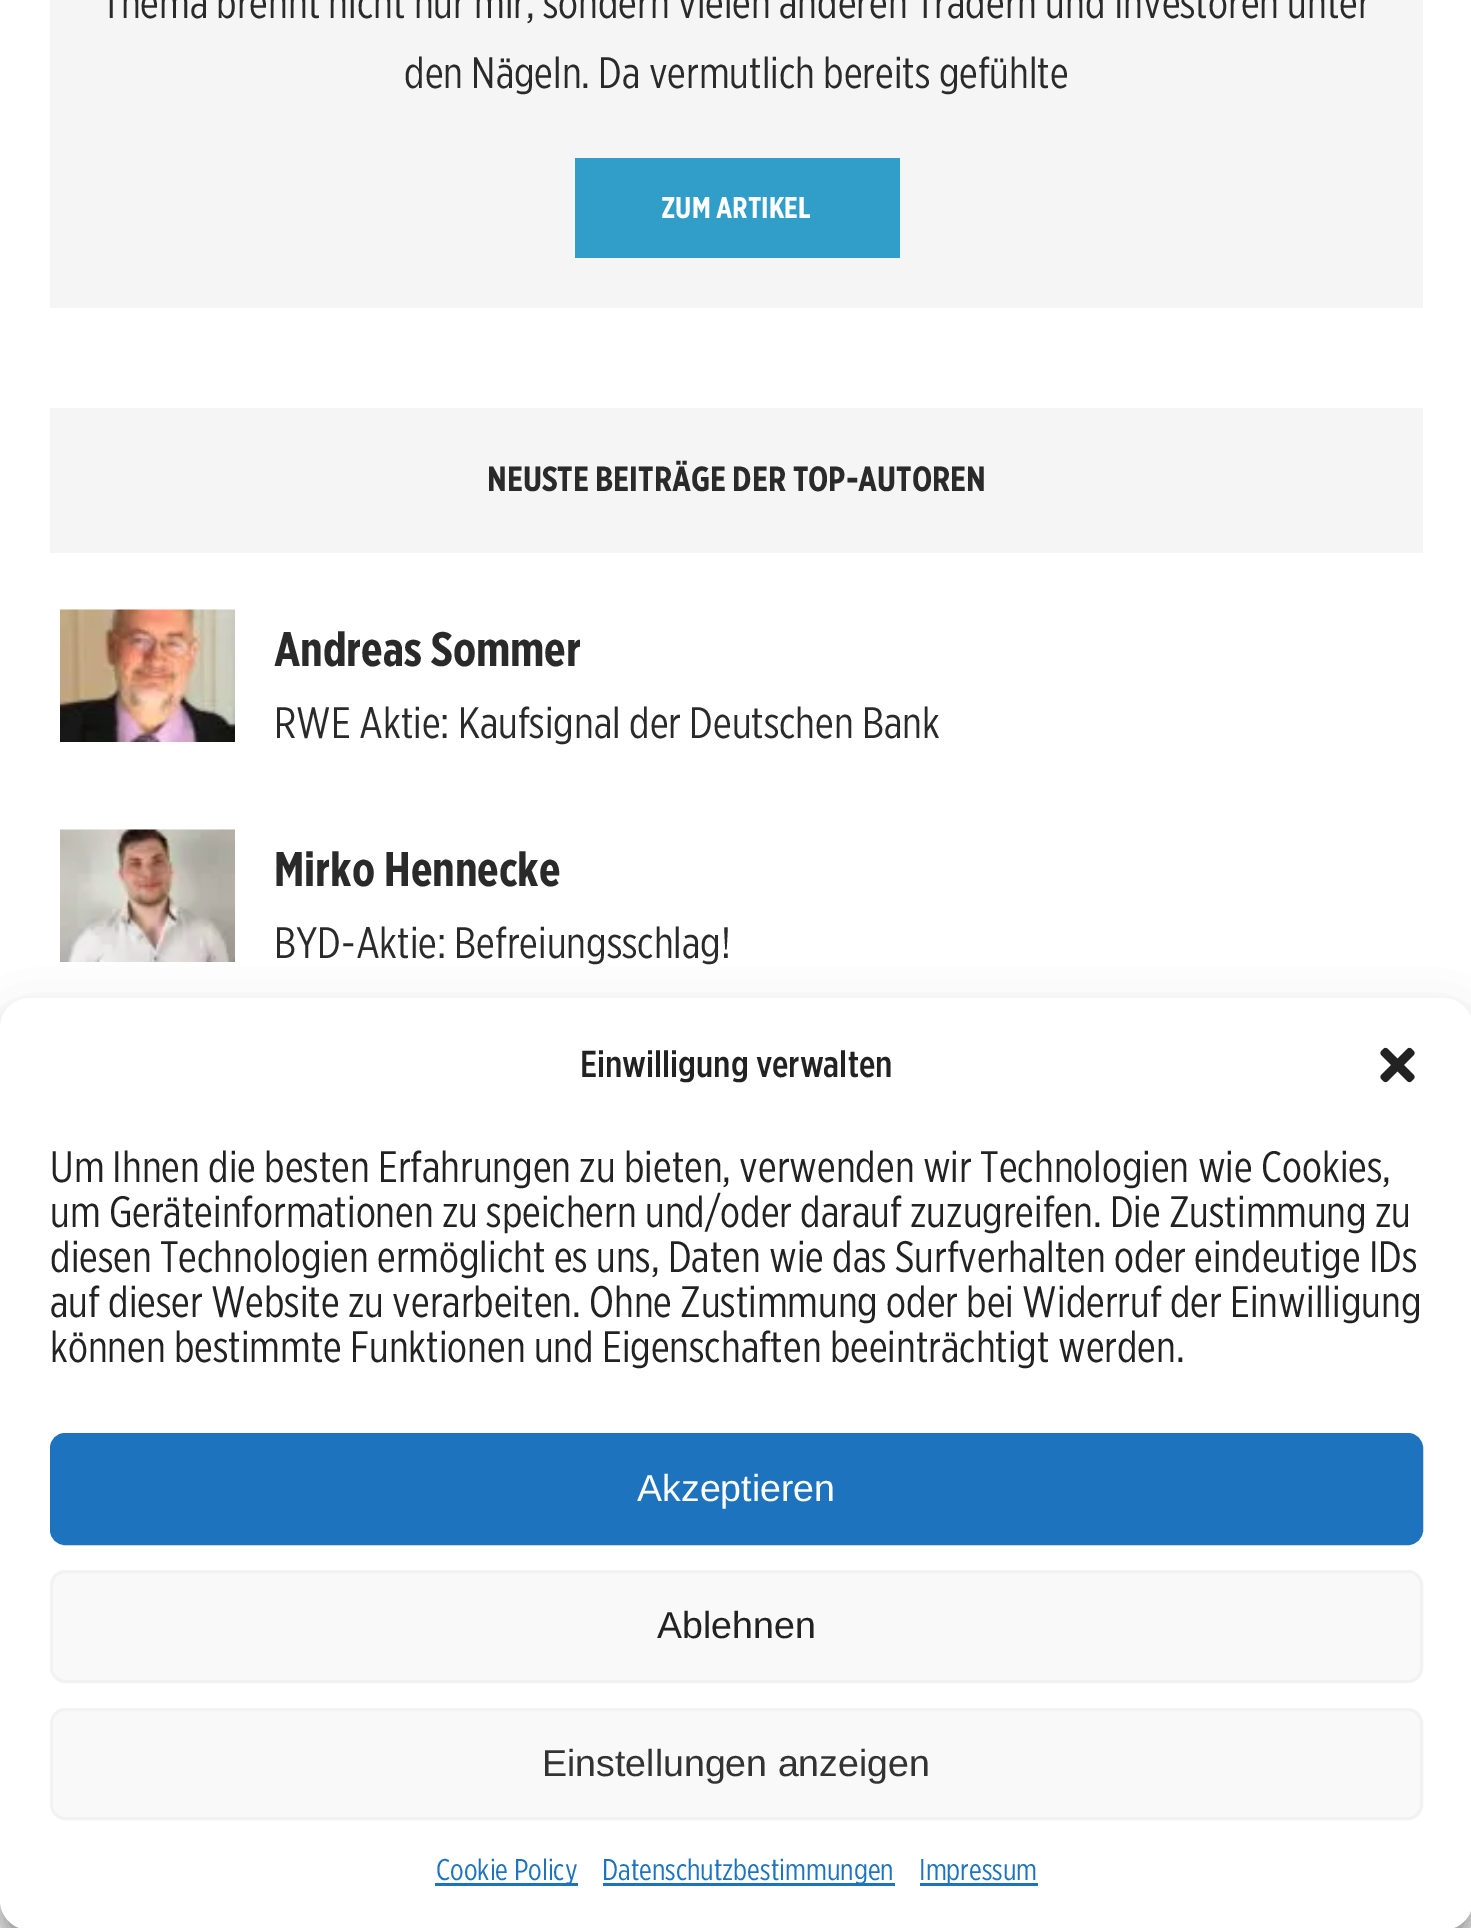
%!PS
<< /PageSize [1471 1928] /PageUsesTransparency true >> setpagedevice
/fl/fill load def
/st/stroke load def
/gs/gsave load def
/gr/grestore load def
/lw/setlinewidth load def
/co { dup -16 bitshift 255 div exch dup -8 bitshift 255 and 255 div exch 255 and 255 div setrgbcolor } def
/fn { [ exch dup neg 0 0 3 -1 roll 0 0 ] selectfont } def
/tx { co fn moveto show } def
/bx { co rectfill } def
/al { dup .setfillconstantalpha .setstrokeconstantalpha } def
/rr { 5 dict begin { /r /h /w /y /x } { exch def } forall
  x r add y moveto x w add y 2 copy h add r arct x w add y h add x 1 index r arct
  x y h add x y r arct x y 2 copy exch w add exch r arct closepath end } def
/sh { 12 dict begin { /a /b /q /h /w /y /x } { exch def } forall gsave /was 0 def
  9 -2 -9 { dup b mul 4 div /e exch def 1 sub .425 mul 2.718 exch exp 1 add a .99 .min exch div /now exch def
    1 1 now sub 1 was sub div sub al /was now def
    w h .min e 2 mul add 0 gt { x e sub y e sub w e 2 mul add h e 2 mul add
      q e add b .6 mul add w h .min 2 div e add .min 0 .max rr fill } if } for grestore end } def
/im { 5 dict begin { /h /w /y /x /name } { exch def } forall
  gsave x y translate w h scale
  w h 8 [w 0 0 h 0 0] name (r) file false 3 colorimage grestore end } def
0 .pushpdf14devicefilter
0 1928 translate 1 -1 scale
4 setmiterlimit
0 0 1471 1928 16#FFFFFF bx
50 0 1373 308 16#F5F5F5 bx
575 158 325 100 16#319ECA bx
50 408 1373 145 16#F5F5F5 bx
(media/1.raw) 60 609 175 133 im
(media/2.raw) 60 829 175 133 im
0 1900 1471 28 16#F5F5F5 bx
16#000000 co
0 1013 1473 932 30 7.5 .23 sh
0 1023 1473 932 30 25 .19 sh
16#FFFFFF co
0 998 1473 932 30 rr fl
(media/3.raw) 1380 1047 35 36 im
16#1E73BE co
51.5 1434.5 1370 109 13.5 rr gs fl gr
3 lw
st
16#F9F9F9 co
51.5 1571.5 1370 110 13.5 rr gs fl gr
16#F2F2F2 co
st
16#F9F9F9 co
51.5 1709.5 1370 109 13.5 rr gs fl gr
16#F2F2F2 co
st
435 1883 143 3 16#1E73BE bx
603 1883 292 3 16#1E73BE bx
920 1883 118 3 16#1E73BE bx
(Thema brennt nicht nur mir, sondern vielen anderen Tradern und Investoren unter) 102 18 /Gotham-Regular 44 16#2A2A2A tx
(den Nägeln. Da vermutlich bereits gefühlte) 404 88 /Gotham-Regular 44 16#2A2A2A tx
(ZUM ARTIKEL) 661 218 /Gotham-Bold 30 16#FFFFFF tx
(NEUSTE BEITRÄGE DER TOP-AUTOREN) 487 491 /Gotham-Bold 35 16#2A2A2A tx
(Andreas Sommer) 274 666 /Gotham-Bold 48.5 16#2A2A2A tx
(RWE Aktie: Kaufsignal der Deutschen Bank) 274 738 /Gotham-Regular 44 16#2A2A2A tx
(Mirko Hennecke) 274 886 /Gotham-Bold 48.5 16#2A2A2A tx
(BYD-Aktie: Befreiungsschlag!) 274 958 /Gotham-Regular 44 16#2A2A2A tx
(Einwilligung verwalten) 580 1077 /Gotham-Medium 37.5 16#222222 tx
(Um Ihnen die besten Erfahrungen zu bieten, verwenden wir Technologien wie Cookies,) 50 1182 /Gotham-Regular 44 16#222222 tx
(um Geräteinformationen zu speichern und/oder darauf zuzugreifen. Die Zustimmung zu) 50 1227 /Gotham-Regular 44 16#222222 tx
(diesen Technologien ermöglicht es uns, Daten wie das Surfverhalten oder eindeutige IDs) 50 1272 /Gotham-Regular 44 16#222222 tx
(auf dieser Website zu verarbeiten. Ohne Zustimmung oder bei Widerruf der Einwilligung) 50 1317 /Gotham-Regular 44 16#222222 tx
(können bestimmte Funktionen und Eigenschaften beeinträchtigt werden.) 50 1362 /Gotham-Regular 44 16#222222 tx
(Akzeptieren) 637 1501 /LiberationSans-Regular 37.5 16#FFFFFF tx
(Ablehnen) 657 1638 /LiberationSans-Regular 37.5 16#222222 tx
(Einstellungen anzeigen) 542 1776 /LiberationSans-Regular 37.5 16#333333 tx
(Cookie Policy) 436 1880 /Gotham-Regular 30 16#1E73BE tx
(Datenschutzbestimmungen) 602 1880 /Gotham-Regular 30 16#1E73BE tx
(Impressum) 919 1880 /Gotham-Regular 30 16#1E73BE tx
.poppdf14devicefilter showpage
